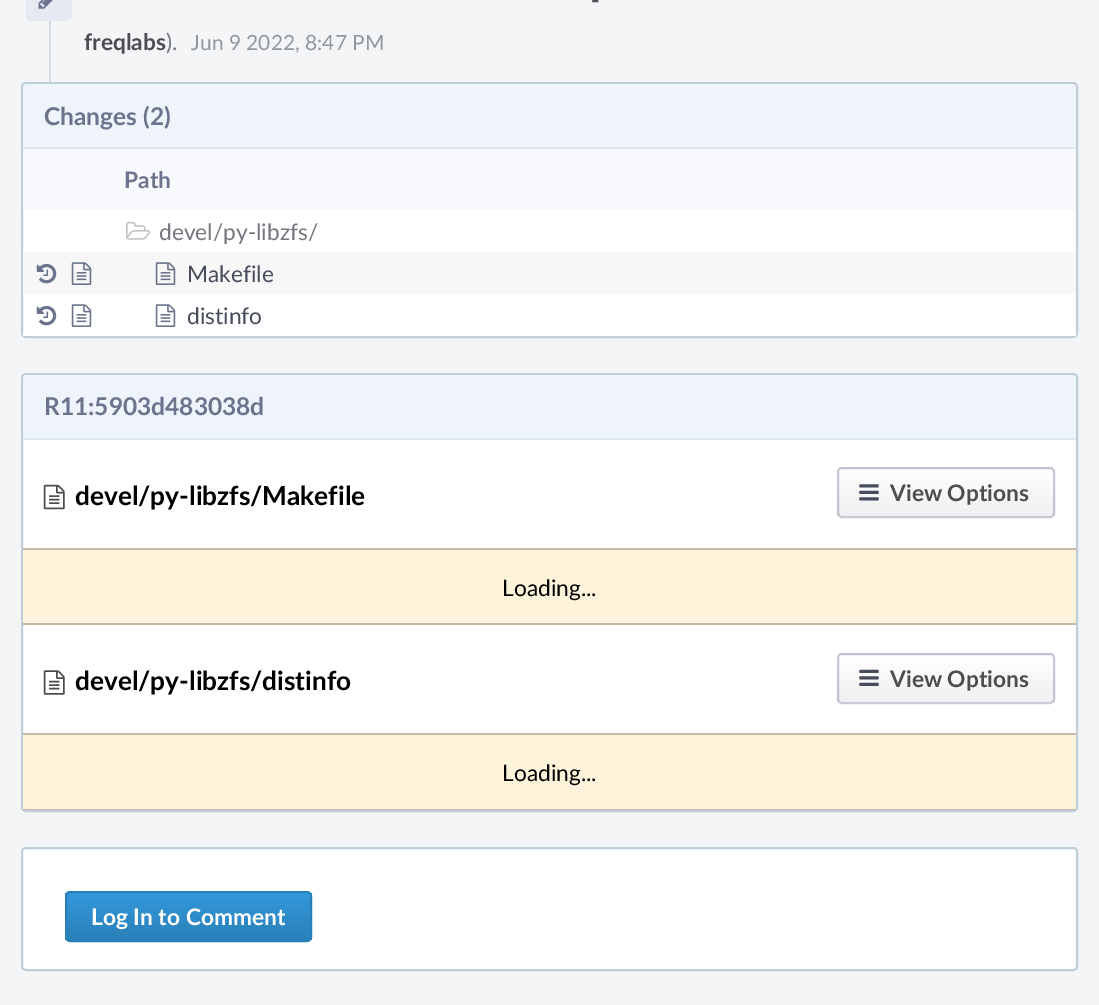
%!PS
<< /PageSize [1099 1005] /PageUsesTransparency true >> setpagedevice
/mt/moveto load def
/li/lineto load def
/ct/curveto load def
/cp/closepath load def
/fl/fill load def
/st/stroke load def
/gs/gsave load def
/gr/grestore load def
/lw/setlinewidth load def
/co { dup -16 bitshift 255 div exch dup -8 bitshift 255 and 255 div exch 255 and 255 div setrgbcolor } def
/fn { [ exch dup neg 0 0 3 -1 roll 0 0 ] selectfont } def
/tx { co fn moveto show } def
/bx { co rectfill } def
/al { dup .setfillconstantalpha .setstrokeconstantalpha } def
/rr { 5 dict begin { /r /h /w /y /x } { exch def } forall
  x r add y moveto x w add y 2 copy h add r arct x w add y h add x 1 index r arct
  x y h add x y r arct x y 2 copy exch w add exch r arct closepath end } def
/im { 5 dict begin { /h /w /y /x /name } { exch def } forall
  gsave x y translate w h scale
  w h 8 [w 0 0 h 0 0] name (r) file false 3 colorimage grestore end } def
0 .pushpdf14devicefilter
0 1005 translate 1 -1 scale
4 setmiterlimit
0 0 1099 1005 16#F3F5F7 bx
(media/1.raw) 49 21 2 61 im
16#E6E9F1 co
26 -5 46 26 5 rr fl
(media/2.raw) 38 0 15 9 im
16#FFFFFF co
22 83 1055 254 4 rr gs fl gr
16#BFCFDA co
2 lw
st
16#EFF3FC co
28 84 mt 1071 84 li 1074 84 1076 86 1076 89 ct 1076 149 li 23 149 li 23 89 li 23 86 25 84 28 84 ct cp fl
23 147 1053 2 16#DDE8EF bx
23 333 1053 3 16#FFFFFF bx
23 149 1053 61 16#F8F9FC bx
(media/3.raw) 126 221 25 19 im
23 252 1053 42 16#F7F7F7 bx
(media/4.raw) 36 263 21 21 im
(media/5.raw) 71 262 21 23 im
(media/5.raw) 155 262 21 23 im
(media/6.raw) 36 305 21 21 im
(media/7.raw) 71 304 21 23 im
(media/7.raw) 155 304 21 23 im
16#FFFFFF co
22 374 1055 437 4 rr gs fl gr
16#BFCFDA co
st
16#EFF3FC co
28 375 mt 1071 375 li 1074 375 1076 377 1076 380 ct 1076 439 li 23 439 li 23 380 li 23 377 25 375 28 375 ct cp fl
23 438 1053 2 16#DDE8EF bx
(media/8.raw) 43 484 22 26 im
gs
837 467 218 51 5 rr clip newpath
gs 837 467 mt 1055 467 li 1055 469 li 837 469 li cp clip newpath
<< /ShadingType 2 /ColorSpace /DeviceRGB /Coords [946 422 946 469] /Extend [true true] /Function << /FunctionType 2 /Domain [0 1] /C0 [1 1 1] /C1 [.945 .941 .945] /N 1 >> >> shfill gr
gs 837 469 mt 1055 469 li 1055 516 li 837 516 li cp clip newpath
<< /ShadingType 2 /ColorSpace /DeviceRGB /Coords [946 469 946 516] /Extend [true true] /Function << /FunctionType 2 /Domain [0 1] /C0 [1 1 1] /C1 [.945 .941 .945] /N 1 >> >> shfill gr
gr
0.3 al
16#475778 co
838 468 216 49 4 rr st
1 al
(media/9.raw) 859 484 20 17 im
23 550 1053 73 16#FDF3DA bx
23 548 1053 2 16#C9B8A8 bx
23 623 1053 2 16#C9B8A8 bx
(media/10.raw) 43 670 22 25 im
gs
837 653 218 51 5 rr clip newpath
gs 837 653 mt 1055 653 li 1055 655 li 837 655 li cp clip newpath
<< /ShadingType 2 /ColorSpace /DeviceRGB /Coords [946 607 946 655] /Extend [true true] /Function << /FunctionType 2 /Domain [0 1] /C0 [1 1 1] /C1 [.945 .941 .945] /N 1 >> >> shfill gr
gs 837 655 mt 1055 655 li 1055 702 li 837 702 li cp clip newpath
<< /ShadingType 2 /ColorSpace /DeviceRGB /Coords [946 655 946 702] /Extend [true true] /Function << /FunctionType 2 /Domain [0 1] /C0 [1 1 1] /C1 [.945 .941 .945] /N 1 >> >> shfill gr
gr
0.3 al
16#475778 co
838 654 216 49 4 rr st
1 al
(media/11.raw) 859 669 20 17 im
23 735 1053 74 16#FDF3DA bx
23 733 1053 2 16#C9B8A8 bx
23 809 1053 1 16#C9B8A8 bx
16#FFFFFF co
22 848 1055 122 4 rr gs fl gr
16#BFCFDA co
st
gs
65 891 247 51 5 rr clip newpath
gs 65 893 mt 312 893 li 312 940 li 65 940 li cp clip newpath
<< /ShadingType 2 /ColorSpace /DeviceRGB /Coords [188 893 188 940] /Extend [true true] /Function << /FunctionType 2 /Domain [0 1] /C0 [.204 .596 .859] /C1 [.161 .502 .725] /N 1 >> >> shfill gr
gr
16#2980B9 co
66 892 245 49 4 rr st
(-) 591 8 /Lato-Bold 22.75 16#4B4D51 tx
(freqlabs) 84 50 /Lato-Bold 22.75 16#4B4D51 tx
(\).) 166 50 /Lato-Regular 22.75 16#74777D tx
(Jun 9 2022, 8:47 PM) 191 50 /Lato-Regular 21 16#92969D tx
(Changes \(2\)) 44 125 /Lato-Bold 24.5 16#6B748C tx
(Path) 124 188 /Lato-Bold 22.75 16#6B748C tx
(devel/py-libzfs/) 159 240 /Lato-Regular 22.75 16#74777D tx
(Makefile) 187 282 /Lato-Regular 22.75 16#464C5C tx
(distinfo) 187 324 /Lato-Regular 22.75 16#464C5C tx
(R11:5903d483038d) 44 415 /Lato-Bold 24.5 16#6B748C tx
(devel/py-libzfs/Makefile) 75 505 /Lato-Bold 26.25 16#000000 tx
(View Options) 890 501 /Lato-Bold 22.75 16#4B4D51 tx
(Loading...) 502 596 /Lato-Regular 22.75 16#000000 tx
(devel/py-libzfs/distinfo) 75 690 /Lato-Bold 26.25 16#000000 tx
(View Options) 890 687 /Lato-Bold 22.75 16#4B4D51 tx
(Loading...) 502 781 /Lato-Regular 22.75 16#000000 tx
(Log In to Comment) 91 925 /Lato-Bold 22.75 16#FFFFFF tx
.poppdf14devicefilter showpage
